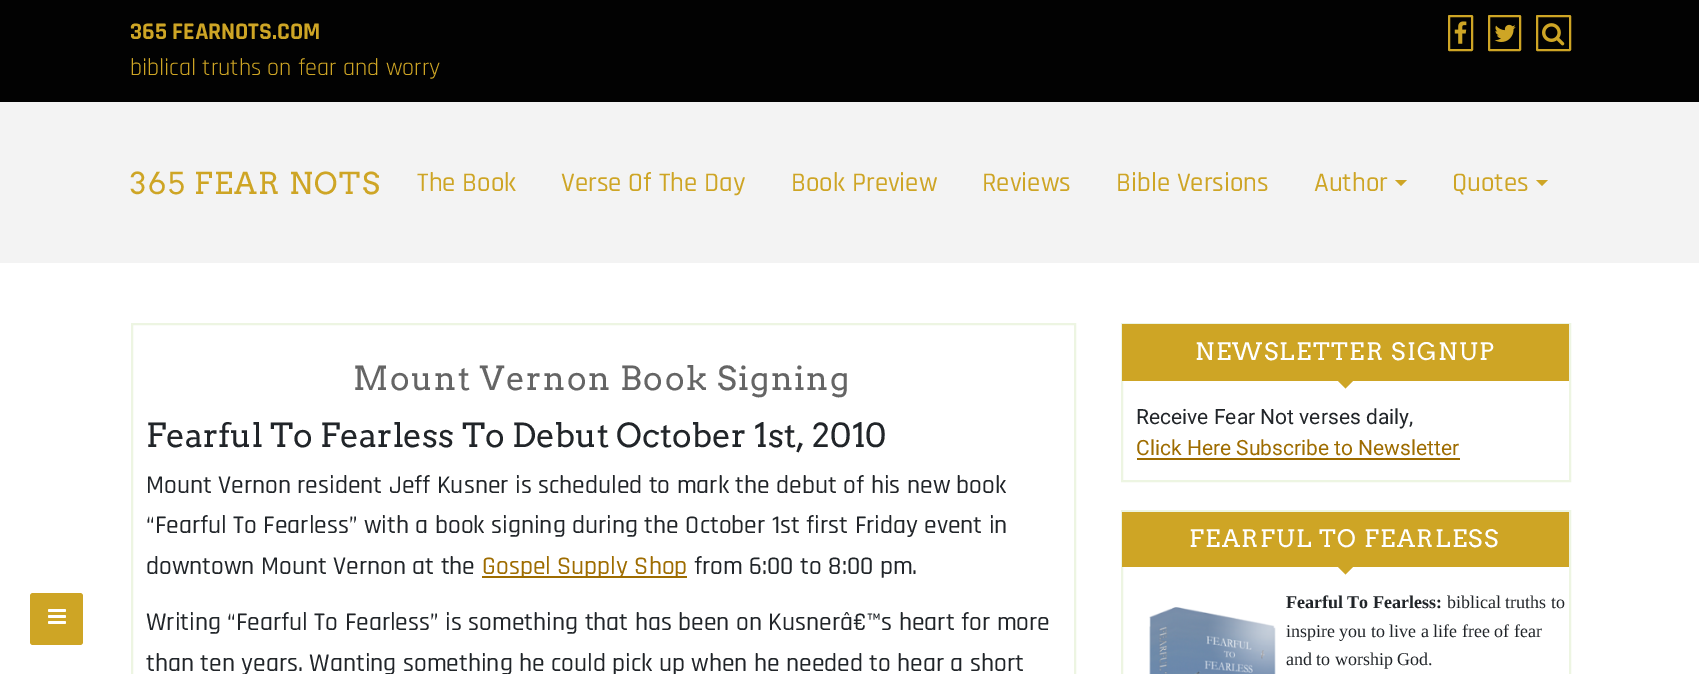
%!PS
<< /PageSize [1699 674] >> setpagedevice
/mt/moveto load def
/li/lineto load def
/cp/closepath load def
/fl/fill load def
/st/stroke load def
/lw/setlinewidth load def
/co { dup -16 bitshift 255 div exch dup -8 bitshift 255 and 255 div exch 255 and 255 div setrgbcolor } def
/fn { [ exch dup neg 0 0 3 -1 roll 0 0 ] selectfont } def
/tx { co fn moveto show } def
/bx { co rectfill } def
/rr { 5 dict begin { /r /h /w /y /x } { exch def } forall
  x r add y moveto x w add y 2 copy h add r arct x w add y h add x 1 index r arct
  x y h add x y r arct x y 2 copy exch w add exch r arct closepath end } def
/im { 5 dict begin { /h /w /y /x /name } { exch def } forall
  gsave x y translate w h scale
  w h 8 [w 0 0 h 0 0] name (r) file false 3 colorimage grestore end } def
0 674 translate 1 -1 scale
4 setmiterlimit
0 0 1699 674 16#FFFFFF bx
0 0 1699 102 16#020202 bx
16#CEA525 co
2 lw
1449 16 23 34 .5 rr st
(media/1.raw) 1454 21 13 23 im
1489 16 31 34 .5 rr st
(media/2.raw) 1494 24 22 18 im
1537 16 33 34 .5 rr st
(media/3.raw) 1542 23 23 23 im
0 102 1699 161 16#F3F3F3 bx
16#CEA525 co
1395 180 mt 1407 180 li 1401 186 li cp fl
1536 180 mt 1548 180 li 1542 186 li cp fl
30 593 53 52 3 rr fl
(media/4.raw) 48 609 18 15 im
16#EDF5E2 co
132 324 943 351 rectstroke
482 576 205 2 16#9E6C00 bx
16#EDF5E2 co
1122 324 448 157 rectstroke
1122 324 447 57 16#CEA525 bx
1338 381 mt 1353 381 li 1345.5 388.5 li cp fl
1137 458 323 2 16#9E6C00 bx
16#EDF5E2 co
1122 511 448 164 rectstroke
1122 512 447 55 16#CEA525 bx
1338 567 mt 1353 567 li 1345.5 574.5 li cp fl
(media/5.raw) 1149 607 127 67 im
(365 FEARNOTS.COM) 130 39 /Rajdhani-Bold 24 16#CEA525 tx
(biblical truths on fear and worry) 130 75 /Rajdhani-Regular 24 16#CEA525 tx
/Arvo-Regular 30 fn
130 194 mt 1.5 0 (365 FEAR NOTS) ashow
(The Book) 417 191 /Rajdhani-Medium 27 16#CEA525 tx
(Verse Of The Day) 561 191 /Rajdhani-Medium 27 16#CEA525 tx
(Book Preview) 791 191 /Rajdhani-Medium 27 16#CEA525 tx
(Reviews) 982 191 /Rajdhani-Medium 27 16#CEA525 tx
(Bible Versions) 1116 191 /Rajdhani-Medium 27 16#CEA525 tx
(Author) 1314 191 /Rajdhani-Medium 27 16#CEA525 tx
(Quotes) 1452 191 /Rajdhani-Medium 27 16#CEA525 tx
/Arvo-Regular 33 fn
16#656565 co
353 390 mt 1.5 0 (Mount Vernon Book Signing) ashow
(Fearful To Fearless To Debut October 1st, 2010) 146 447 /Arvo-Regular 33 16#212529 tx
(Mount Vernon resident Jeff Kusner is scheduled to mark the debut of his new book) 146 493 /Rajdhani-Medium 25.5 16#212529 tx
(“Fearful To Fearless” with a book signing during the October 1st first Friday event in) 146 533 /Rajdhani-Medium 25.5 16#212529 tx
(downtown Mount Vernon at the) 146 574 /Rajdhani-Medium 25.5 16#212529 tx
(Gospel Supply Shop) 482 574 /Rajdhani-Medium 25.5 16#9E6C00 tx
(from 6:00 to 8:00 pm.) 694 574 /Rajdhani-Medium 25.5 16#212529 tx
(Writing “Fearful To Fearless” is something that has been on Kusnerâ€™s heart for more) 146 630 /Rajdhani-Medium 25.5 16#212529 tx
(than ten years. Wanting something he could pick up when he needed to hear a short) 146 671 /Rajdhani-Medium 25.5 16#212529 tx
/Arvo-Regular 24 fn
16#FFFFFF co
1195 360 mt 1.5 0 (NEWSLETTER SIGNUP) ashow
(Receive Fear Not verses daily,) 1136 424 /Roboto-Regular 21 16#212529 tx
(Click Here Subscribe to Newsletter) 1136 455 /Roboto-Regular 21 16#9E6C00 tx
/Arvo-Regular 24 fn
16#FFFFFF co
1189 547 mt 1.5 0 (FEARFUL TO FEARLESS) ashow
(Fearful To Fearless:) 1286 608 /LiberationSerif-Bold 18 16#212529 tx
(biblical truths to) 1447 608 /LiberationSerif-Regular 18 16#212529 tx
(inspire you to live a life free of fear) 1286 637 /LiberationSerif-Regular 18 16#212529 tx
(and to worship God.) 1286 665 /LiberationSerif-Regular 18 16#212529 tx
showpage
